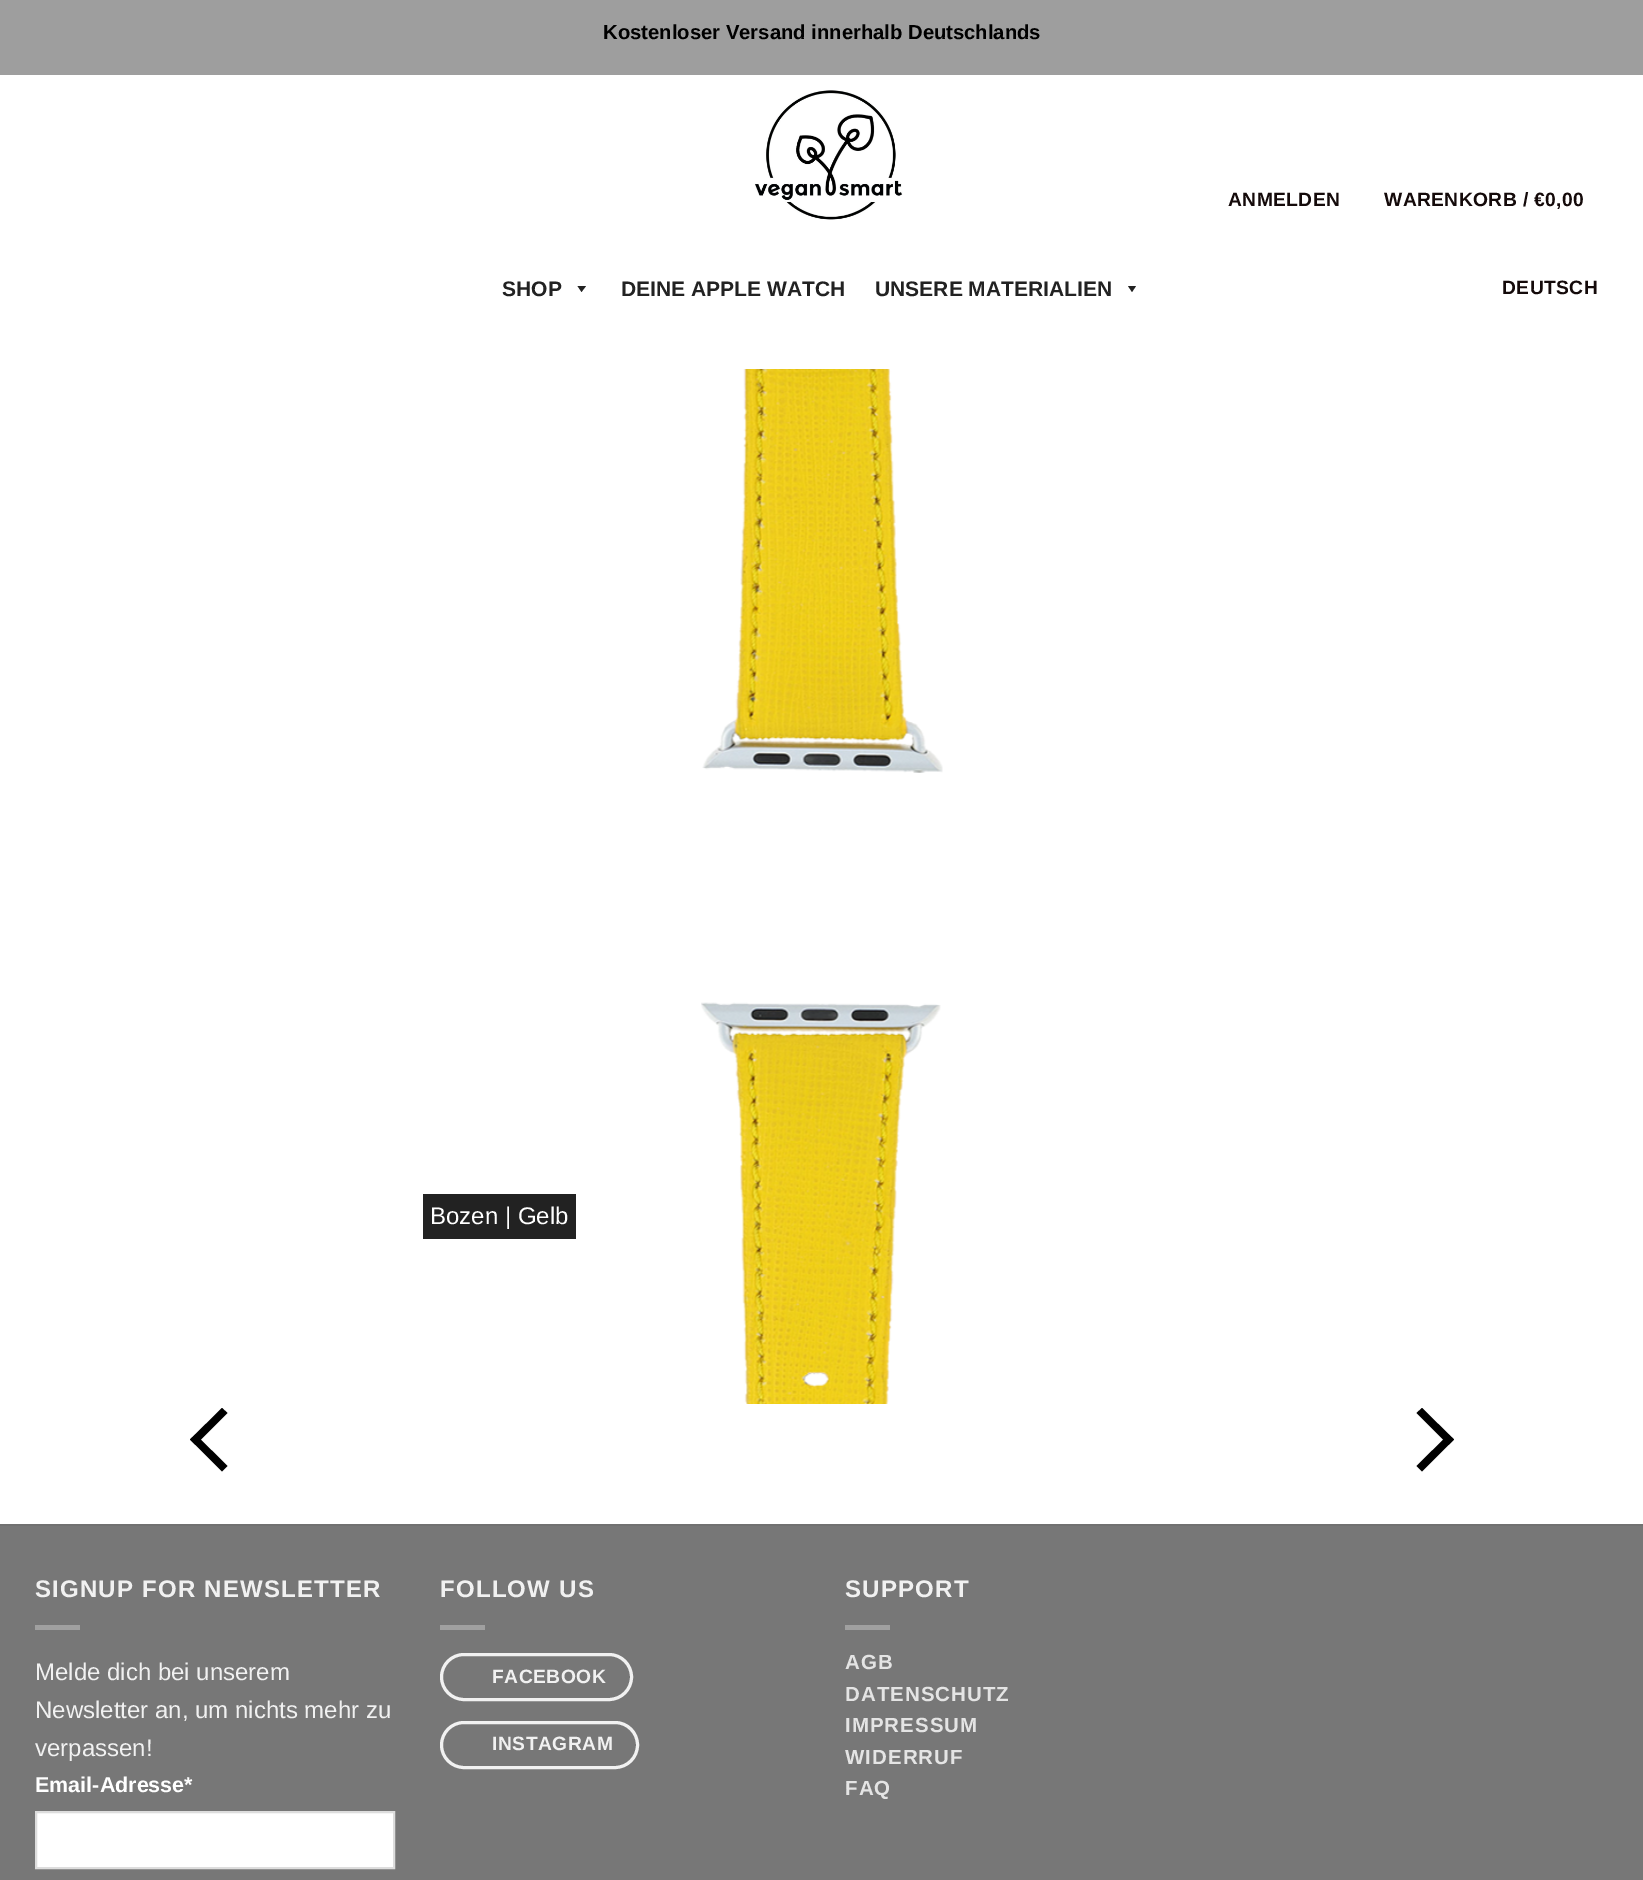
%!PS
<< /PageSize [1643 1880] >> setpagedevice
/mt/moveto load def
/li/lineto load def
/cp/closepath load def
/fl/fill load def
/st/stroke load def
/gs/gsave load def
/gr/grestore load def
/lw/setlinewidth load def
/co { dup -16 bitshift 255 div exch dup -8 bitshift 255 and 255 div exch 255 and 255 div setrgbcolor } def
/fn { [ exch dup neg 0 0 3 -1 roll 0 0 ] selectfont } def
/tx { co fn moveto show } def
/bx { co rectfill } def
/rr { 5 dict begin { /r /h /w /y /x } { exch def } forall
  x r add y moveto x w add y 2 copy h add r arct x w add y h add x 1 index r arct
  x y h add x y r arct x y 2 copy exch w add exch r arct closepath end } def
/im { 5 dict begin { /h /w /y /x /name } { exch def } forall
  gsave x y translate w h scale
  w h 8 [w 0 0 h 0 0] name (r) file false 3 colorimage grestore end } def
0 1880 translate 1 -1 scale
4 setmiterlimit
0 0 1643 1880 16#FFFFFF bx
0 0 1643 75 16#9E9E9E bx
(media/1.raw) 754 90 149 130 im
16#222222 co
586 286 mt 581.5 292 li 577.5 286 li cp fl
1136 286 mt 1132 292 li 1128 286 li cp fl
423 1194 153 45 16#222222 bx
(media/2.raw) 701 369 242 1035 im
16#000000 co
227.5 1466 mt 222 1471.5 li 190 1439.5 li 195.5 1434.5 li cp fl
227.5 1413 mt 195.5 1445 li 190 1439.5 li 222 1408 li cp fl
1416.5 1413 mt 1422 1408 li 1454 1439.5 li 1448.5 1445 li cp fl
1416.5 1466 mt 1448.5 1434.5 li 1454 1439.5 li 1422 1471.5 li cp fl
0 1526 1643 354 16#777777 bx
0 1524 1643 2 16#717171 bx
35 1625 45 5 16#A0A0A0 bx
16#FFFFFF co
36 1812 mt 394 1812 li 394 1868 li 36 1868 li cp gs fl gr
16#DDDDDD co
2 lw
st
440 1625 45 5 16#A0A0A0 bx
16#F1F1F1 co
3 lw
441.5 1654.5 190 45 22.5 rr st
441.5 1722.5 196 45 22.5 rr st
845 1625 45 5 16#A0A0A0 bx
(Kostenloser Versand innerhalb Deutschlands) 603 39 /LiberationSans-Bold 20.25 16#000000 tx
/LiberationSans-Bold 19.25 fn
16#140A0A co
1228 206 mt .4 0 (ANMELDEN) ashow
1384 206 mt .4 0 (WARENKORB / €0,00) ashow
(SHOP) 502 296 /LiberationSans-Bold 21 16#222222 tx
(DEINE APPLE WATCH) 621 296 /LiberationSans-Bold 21 16#222222 tx
(UNSERE MATERIALIEN) 875 296 /LiberationSans-Bold 21 16#222222 tx
/LiberationSans-Bold 19.25 fn
16#140A0A co
1502 294 mt .4 0 (DEUTSCH) ashow
(Bozen | Gelb) 430 1224 /LiberationSans-Regular 24 16#FFFFFF tx
/LiberationSans-Bold 24 fn
16#F1F1F1 co
35 1597 mt 1.2 0 (SIGNUP FOR NEWSLETTER) ashow
(Melde dich bei unserem) 35 1680 /LiberationSans-Regular 24 16#F1F1F1 tx
(Newsletter an, um nichts mehr zu) 35 1718 /LiberationSans-Regular 24 16#F1F1F1 tx
(verpassen!) 35 1756 /LiberationSans-Regular 24 16#F1F1F1 tx
(Email-Adresse*) 35 1792 /LiberationSans-Bold 21.5 16#FFFFFF tx
/LiberationSans-Bold 24 fn
16#F1F1F1 co
440 1597 mt 1.2 0 (FOLLOW US) ashow
/LiberationSans-Bold 19.25 fn
492 1683 mt .5 0 (FACEBOOK) ashow
492 1750 mt .5 0 (INSTAGRAM) ashow
/LiberationSans-Bold 24 fn
845 1597 mt 1.2 0 (SUPPORT) ashow
/LiberationSans-Bold 20.5 fn
16#E4E4E4 co
845 1669 mt 1 0 (AGB) ashow
845 1701 mt 1 0 (DATENSCHUTZ) ashow
845 1732 mt 1 0 (IMPRESSUM) ashow
845 1764 mt 1 0 (WIDERRUF) ashow
845 1795 mt 1 0 (FAQ) ashow
showpage
